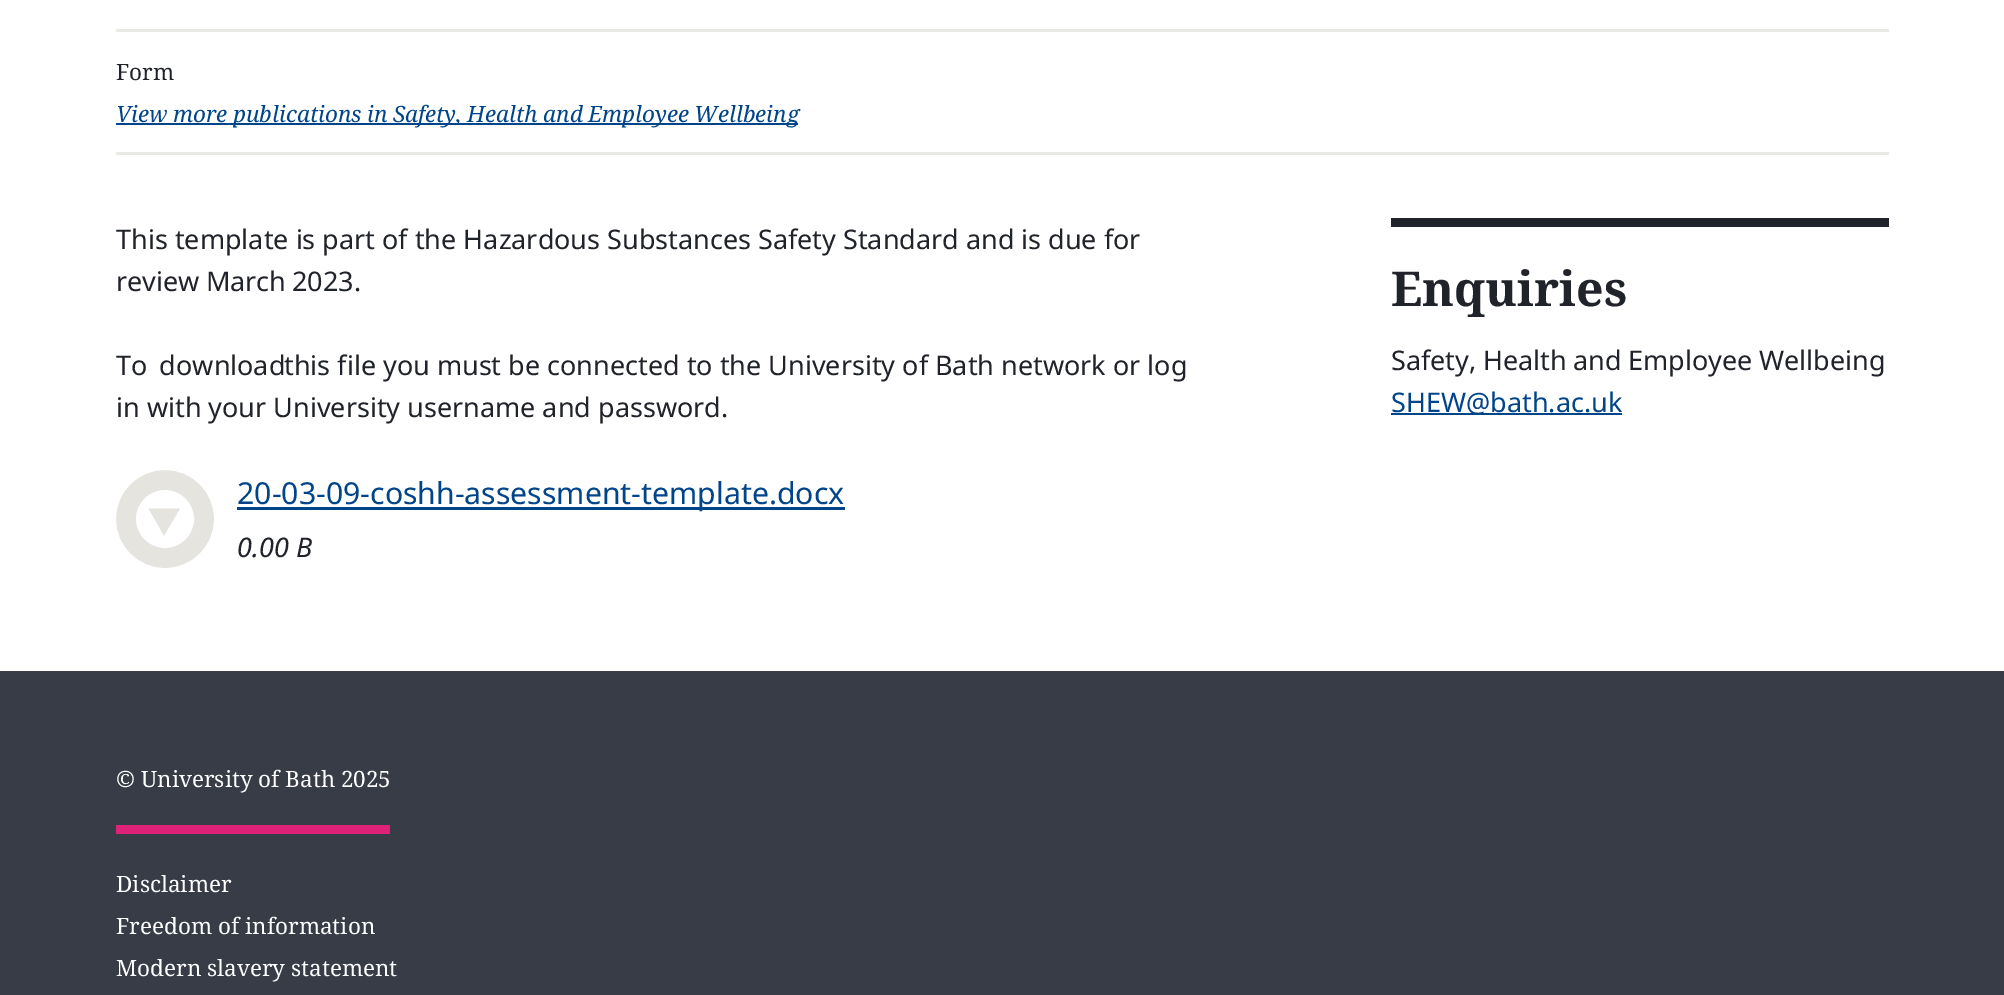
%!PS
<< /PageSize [2004 995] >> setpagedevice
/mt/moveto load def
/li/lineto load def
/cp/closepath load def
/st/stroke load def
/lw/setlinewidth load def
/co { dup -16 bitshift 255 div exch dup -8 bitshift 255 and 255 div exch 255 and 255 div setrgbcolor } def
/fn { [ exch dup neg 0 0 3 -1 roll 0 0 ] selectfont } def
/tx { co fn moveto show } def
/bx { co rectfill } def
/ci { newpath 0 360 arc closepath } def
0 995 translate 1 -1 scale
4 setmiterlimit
0 0 2004 995 16#FFFFFF bx
116 29 1773 3 16#EAE9E5 bx
116 152 1773 3 16#EAE9E5 bx
116 123 682 2 16#004489 bx
16#E5E4DF co
19.5 lw
165 519 39 ci st
148.5 508.5 mt 180 508.5 li 164 535.5 li cp eofill
237 507 608 3 16#004489 bx
1391 218 498 9 16#202329 bx
1391 413 231 2 16#004489 bx
0 671 2004 324 16#373C46 bx
116 825 274 9 16#DD2277 bx
(Form) 116 80 /NotoSerif-Regular 22.5 16#202329 tx
/NotoSerif-Italic 22.5 fn
16#004489 co
116 122 mt -.5 0 32 (View more publications in Safety, Health and Employee Wellbeing) widthshow
(This template is part of the Hazardous Substances Safety Standard and is due for) 116 249 /NotoSans-Regular 27 16#202329 tx
116 291 mt -1 0 32 (review March 2023.) widthshow
116 375 mt 5 0 32 (To download) widthshow
(this file you must be connected to the University of Bath network or log) 284 375 /NotoSans-Regular 27 16#202329 tx
(in with your University username and password.) 116 417 /NotoSans-Regular 27 16#202329 tx
(20-03-09-coshh-assessment-template.docx) 237 504 /NotoSans-Regular 30.25 16#004489 tx
(0.00 B) 237 557 /NotoSans-Italic 27 16#202329 tx
(Enquiries) 1391 306 /NotoSerif-Bold 48 16#202329 tx
/NotoSans-Regular 27 fn
1391 370 mt -.5 0 32 (Safety, Health and Employee Wellbeing) widthshow
(SHEW@bath.ac.uk) 1391 412 /NotoSans-Regular 27 16#004489 tx
(© University of Bath 2025) 116 787 /NotoSerif-Regular 22.5 16#FFFFFF tx
(Disclaimer) 116 892 /NotoSerif-Regular 22.5 16#FFFFFF tx
(Freedom of information) 116 934 /NotoSerif-Regular 22.5 16#FFFFFF tx
(Modern slavery statement) 116 976 /NotoSerif-Regular 22.5 16#FFFFFF tx
showpage
